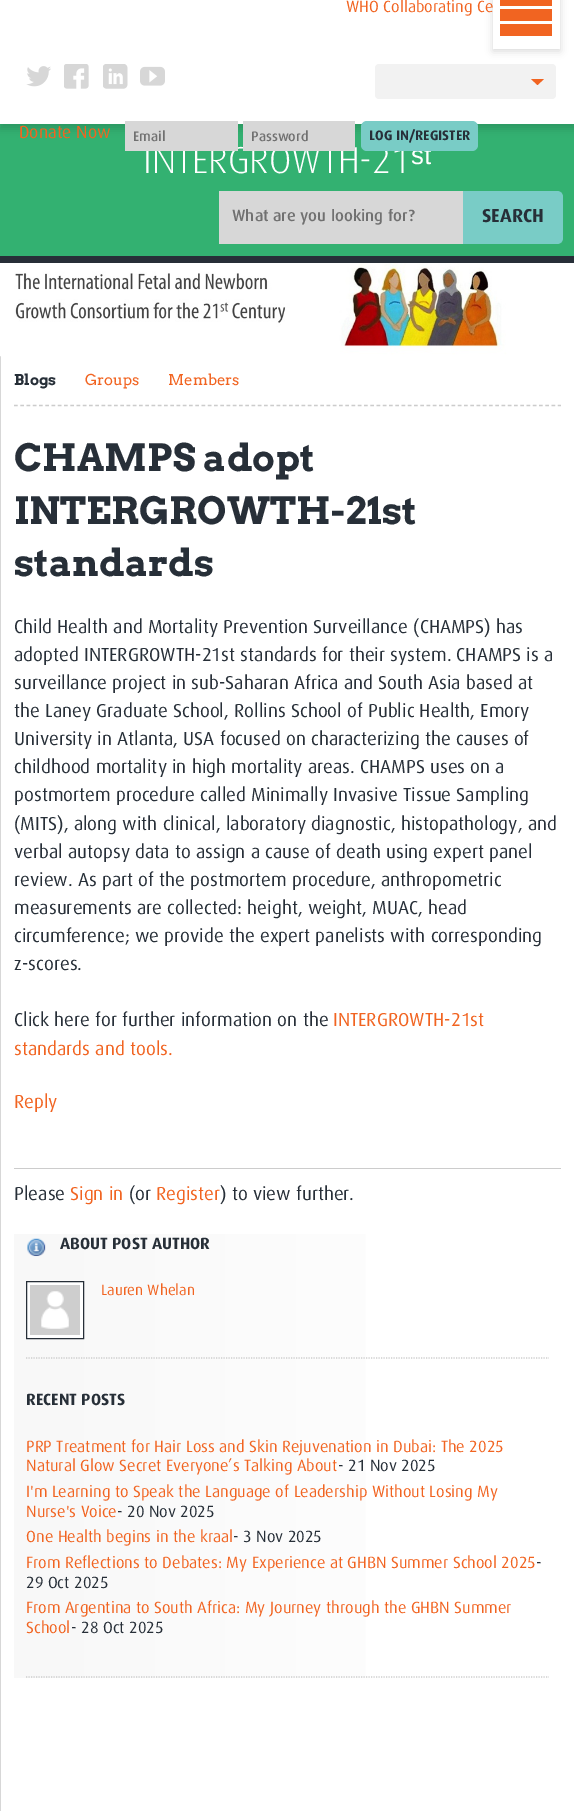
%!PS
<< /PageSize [574 1811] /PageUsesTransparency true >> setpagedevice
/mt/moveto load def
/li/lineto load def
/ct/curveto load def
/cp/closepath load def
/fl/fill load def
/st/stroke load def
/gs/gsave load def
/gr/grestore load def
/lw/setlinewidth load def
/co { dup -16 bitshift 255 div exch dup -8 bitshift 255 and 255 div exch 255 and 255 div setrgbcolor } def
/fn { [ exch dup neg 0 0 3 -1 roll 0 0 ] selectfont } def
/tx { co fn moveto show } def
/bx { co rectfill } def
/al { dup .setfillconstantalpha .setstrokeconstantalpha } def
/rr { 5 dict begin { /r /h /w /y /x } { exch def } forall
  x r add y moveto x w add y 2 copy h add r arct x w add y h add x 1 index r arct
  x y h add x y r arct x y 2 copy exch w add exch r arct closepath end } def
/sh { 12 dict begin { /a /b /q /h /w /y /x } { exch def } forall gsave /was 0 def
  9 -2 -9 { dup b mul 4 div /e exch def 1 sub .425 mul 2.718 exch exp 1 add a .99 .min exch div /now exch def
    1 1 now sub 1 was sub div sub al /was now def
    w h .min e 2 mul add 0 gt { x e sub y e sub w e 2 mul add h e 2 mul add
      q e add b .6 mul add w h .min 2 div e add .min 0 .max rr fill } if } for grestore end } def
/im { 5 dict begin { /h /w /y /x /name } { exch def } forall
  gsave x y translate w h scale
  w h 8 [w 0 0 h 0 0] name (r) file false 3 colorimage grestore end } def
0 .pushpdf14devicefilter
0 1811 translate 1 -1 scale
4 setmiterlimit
0 0 574 1811 16#33B171 bx
16#000000 co
0 -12 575 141 0 4 .15 sh
0 0 574 124 16#FFFFFF bx
(media/1.raw) 26 66 25 21 im
(media/2.raw) 64 64 25 25 im
(media/3.raw) 103 64 25 25 im
(media/4.raw) 140 66 25 20 im
16#F2F2F2 co
375 64 181 35 4 rr fl
16#F16421 co
531 79 mt 544 79 li 537.5 85 li cp fl
16#000000 co
493 -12 67 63 0 4 .15 sh
493 0 67 49 16#FFFFFF bx
16#F16421 co
500 -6 mt 552 -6 li 552 6 li 500 6 li cp 500 9 mt 552 9 li 552 21 li 500 21 li cp 500 24 mt 552 24 li 552 36 li 500 36 li cp fl
219 191 244 53 16#D7D7D7 bx
16#79CCC6 co
463 191 mt 557 191 li 560.5 191 563 193.5 563 197 ct 563 238 li 563 241.5 560.5 244 557 244 ct 463 244 li cp fl
0 256 574 7 16#272F38 bx
1 356 573 1455 16#FFFFFF bx
0 356 1 1455 16#D7D7D7 bx
(media/5.raw) 0 263 574 94 im
16#CCCCCC co
1.2 lw
[3.75 2.5] 0 setdash
14 405.5 mt 561 405.5 li st
14 1168 547 1 16#CCCCCC bx
gs 14 1234 mt 366 1234 li 366 1678 li 14 1678 li cp clip newpath
<< /ShadingType 2 /ColorSpace /DeviceRGB /Coords [14 1456 561 1456] /Extend [true true] /Function << /FunctionType 2 /Domain [0 1] /C0 [.973 .973 .973] /C1 [1 1 1] /N 1 >> >> shfill gr
[1.25 1.25] 0 setdash
26 1358 mt 549 1358 li st
(media/6.raw) 27 1238 19 19 im
16#FFFFFF co
26.5 1281.5 mt 83.5 1281.5 li 83.5 1338.5 li 26.5 1338.5 li cp gs fl gr
16#272F38 co
1 lw
[] 0 setdash
st
(media/7.raw) 30 1285 50 50 im
16#CCCCCC co
1.2 lw
[1.25 1.25] 0 setdash
26 1677 mt 549 1677 li st
(WHO Collaborating Ce) 346 12 /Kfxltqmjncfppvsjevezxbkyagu-Regular 16.25 16#F16421 tx
(Donate Now) 19 138 /Kfxltqmjncfppvsjevezxbkyagu-Regular 17.5 16#F16421 tx
(INTERGROWTH-21) 143 173 /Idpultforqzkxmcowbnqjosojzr-Light 37.5 16#FFFFFF tx
243 121 112 30 16#D7D7D7 bx
(Password) 251 141 /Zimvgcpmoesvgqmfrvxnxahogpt-Medium 13.75 16#707070 tx
125 121 113 30 16#D7D7D7 bx
(Email) 133 141 /Zimvgcpmoesvgqmfrvxnxahogpt-Medium 13.75 16#707070 tx
(ˢᵗ) 411 173 /LiberationSans-Regular 37.5 16#FFFFFF tx
16#79CCC6 co
361 121 117 30 6 rr fl
(LOG IN/REGISTER) 369 140 /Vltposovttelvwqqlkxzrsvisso-Bold 13.75 16#272F38 tx
gs
231 209 225 16 rectclip
(What are you looking for?) 232 221 /Zimvgcpmoesvgqmfrvxnxahogpt-Medium 16.25 16#707070 tx
gr
(SEARCH) 482 222 /Vltposovttelvwqqlkxzrsvisso-Bold 18.75 16#272F38 tx
(Blogs) 14 385 /Arvo-Bold 15 16#272F38 tx
(Groups) 85 385 /Arvo-Regular 15 16#F16421 tx
(Members) 168 385 /Arvo-Regular 15 16#F16421 tx
(CHAMPS adopt) 14 471 /Arvo-Bold 37.5 16#272F38 tx
(INTERGROWTH-21st) 14 524 /Arvo-Bold 37.5 16#272F38 tx
(standards) 14 576 /Arvo-Bold 37.5 16#272F38 tx
(Child Health and Mortality Prevention Surveillance \(CHAMPS\) has) 14 633 /Kfxltqmjncfppvsjevezxbkyagu-Regular 18.75 16#272F38 tx
(adopted INTERGROWTH-21st standards for their system. CHAMPS is a) 14 661 /Kfxltqmjncfppvsjevezxbkyagu-Regular 18.75 16#272F38 tx
(surveillance project in sub-Saharan Africa and South Asia based at) 14 689 /Kfxltqmjncfppvsjevezxbkyagu-Regular 18.75 16#272F38 tx
(the Laney Graduate School, Rollins School of Public Health, Emory) 14 717 /Kfxltqmjncfppvsjevezxbkyagu-Regular 18.75 16#272F38 tx
(University in Atlanta, USA focused on characterizing the causes of) 14 745 /Kfxltqmjncfppvsjevezxbkyagu-Regular 18.75 16#272F38 tx
(childhood mortality in high mortality areas. CHAMPS uses on a) 14 773 /Kfxltqmjncfppvsjevezxbkyagu-Regular 18.75 16#272F38 tx
(postmortem procedure called Minimally Invasive Tissue Sampling) 14 801 /Kfxltqmjncfppvsjevezxbkyagu-Regular 18.75 16#272F38 tx
(\(MITS\), along with clinical, laboratory diagnostic, histopathology, and) 14 830 /Kfxltqmjncfppvsjevezxbkyagu-Regular 18.75 16#272F38 tx
(verbal autopsy data to assign a cause of death using expert panel) 14 858 /Kfxltqmjncfppvsjevezxbkyagu-Regular 18.75 16#272F38 tx
(review. As part of the postmortem procedure, anthropometric) 14 886 /Kfxltqmjncfppvsjevezxbkyagu-Regular 18.75 16#272F38 tx
(measurements are collected: height, weight, MUAC, head) 14 914 /Kfxltqmjncfppvsjevezxbkyagu-Regular 18.75 16#272F38 tx
(circumference; we provide the expert panelists with corresponding) 14 942 /Kfxltqmjncfppvsjevezxbkyagu-Regular 18.75 16#272F38 tx
(z-scores.) 14 970 /Kfxltqmjncfppvsjevezxbkyagu-Regular 18.75 16#272F38 tx
(Click here for further information on the) 14 1026 /Kfxltqmjncfppvsjevezxbkyagu-Regular 18.75 16#272F38 tx
(INTERGROWTH-21st) 333 1026 /Kfxltqmjncfppvsjevezxbkyagu-Regular 18.75 16#F16421 tx
(standards and tools.) 14 1055 /Kfxltqmjncfppvsjevezxbkyagu-Regular 18.75 16#F16421 tx
(Reply) 14 1108 /Kfxltqmjncfppvsjevezxbkyagu-Regular 18.75 16#F16421 tx
(Please) 14 1200 /Kfxltqmjncfppvsjevezxbkyagu-Regular 18.75 16#272F38 tx
(Sign in) 70 1200 /Kfxltqmjncfppvsjevezxbkyagu-Regular 18.75 16#F16421 tx
(\(or) 129 1200 /Kfxltqmjncfppvsjevezxbkyagu-Regular 18.75 16#272F38 tx
(Register) 156 1200 /Kfxltqmjncfppvsjevezxbkyagu-Regular 18.75 16#F16421 tx
(\) to view further.) 220 1200 /Kfxltqmjncfppvsjevezxbkyagu-Regular 18.75 16#272F38 tx
(ABOUT POST AUTHOR) 60 1249 /Vltposovttelvwqqlkxzrsvisso-Bold 16.25 16#272F38 tx
(Lauren Whelan) 101 1295 /Kfxltqmjncfppvsjevezxbkyagu-Regular 15 16#F16421 tx
(RECENT POSTS) 26 1405 /Vltposovttelvwqqlkxzrsvisso-Bold 16.25 16#272F38 tx
(PRP Treatment for Hair Loss and Skin Rejuvenation in Dubai: The 2025) 26 1452 /Kfxltqmjncfppvsjevezxbkyagu-Regular 16.25 16#F16421 tx
(Natural Glow Secret Everyone’s Talking About) 26 1471 /Kfxltqmjncfppvsjevezxbkyagu-Regular 16.25 16#F16421 tx
(- 21 Nov 2025) 338 1471 /Kfxltqmjncfppvsjevezxbkyagu-Regular 16.25 16#272F38 tx
(I'm Learning to Speak the Language of Leadership Without Losing My) 26 1497 /Kfxltqmjncfppvsjevezxbkyagu-Regular 16.25 16#F16421 tx
(Nurse's Voice) 26 1517 /Kfxltqmjncfppvsjevezxbkyagu-Regular 16.25 16#F16421 tx
(- 20 Nov 2025) 117 1517 /Kfxltqmjncfppvsjevezxbkyagu-Regular 16.25 16#272F38 tx
(One Health begins in the kraal) 26 1542 /Kfxltqmjncfppvsjevezxbkyagu-Regular 16.25 16#F16421 tx
(- 3 Nov 2025) 233 1542 /Kfxltqmjncfppvsjevezxbkyagu-Regular 16.25 16#272F38 tx
(From Reflections to Debates: My Experience at GHBN Summer School 2025) 26 1568 /Kfxltqmjncfppvsjevezxbkyagu-Regular 16.25 16#F16421 tx
(-) 536 1568 /Kfxltqmjncfppvsjevezxbkyagu-Regular 16.25 16#272F38 tx
(29 Oct 2025) 26 1588 /Kfxltqmjncfppvsjevezxbkyagu-Regular 16.25 16#272F38 tx
(From Argentina to South Africa: My Journey through the GHBN Summer) 26 1613 /Kfxltqmjncfppvsjevezxbkyagu-Regular 16.25 16#F16421 tx
(School) 26 1633 /Kfxltqmjncfppvsjevezxbkyagu-Regular 16.25 16#F16421 tx
(- 28 Oct 2025) 71 1633 /Kfxltqmjncfppvsjevezxbkyagu-Regular 16.25 16#272F38 tx
.poppdf14devicefilter showpage
